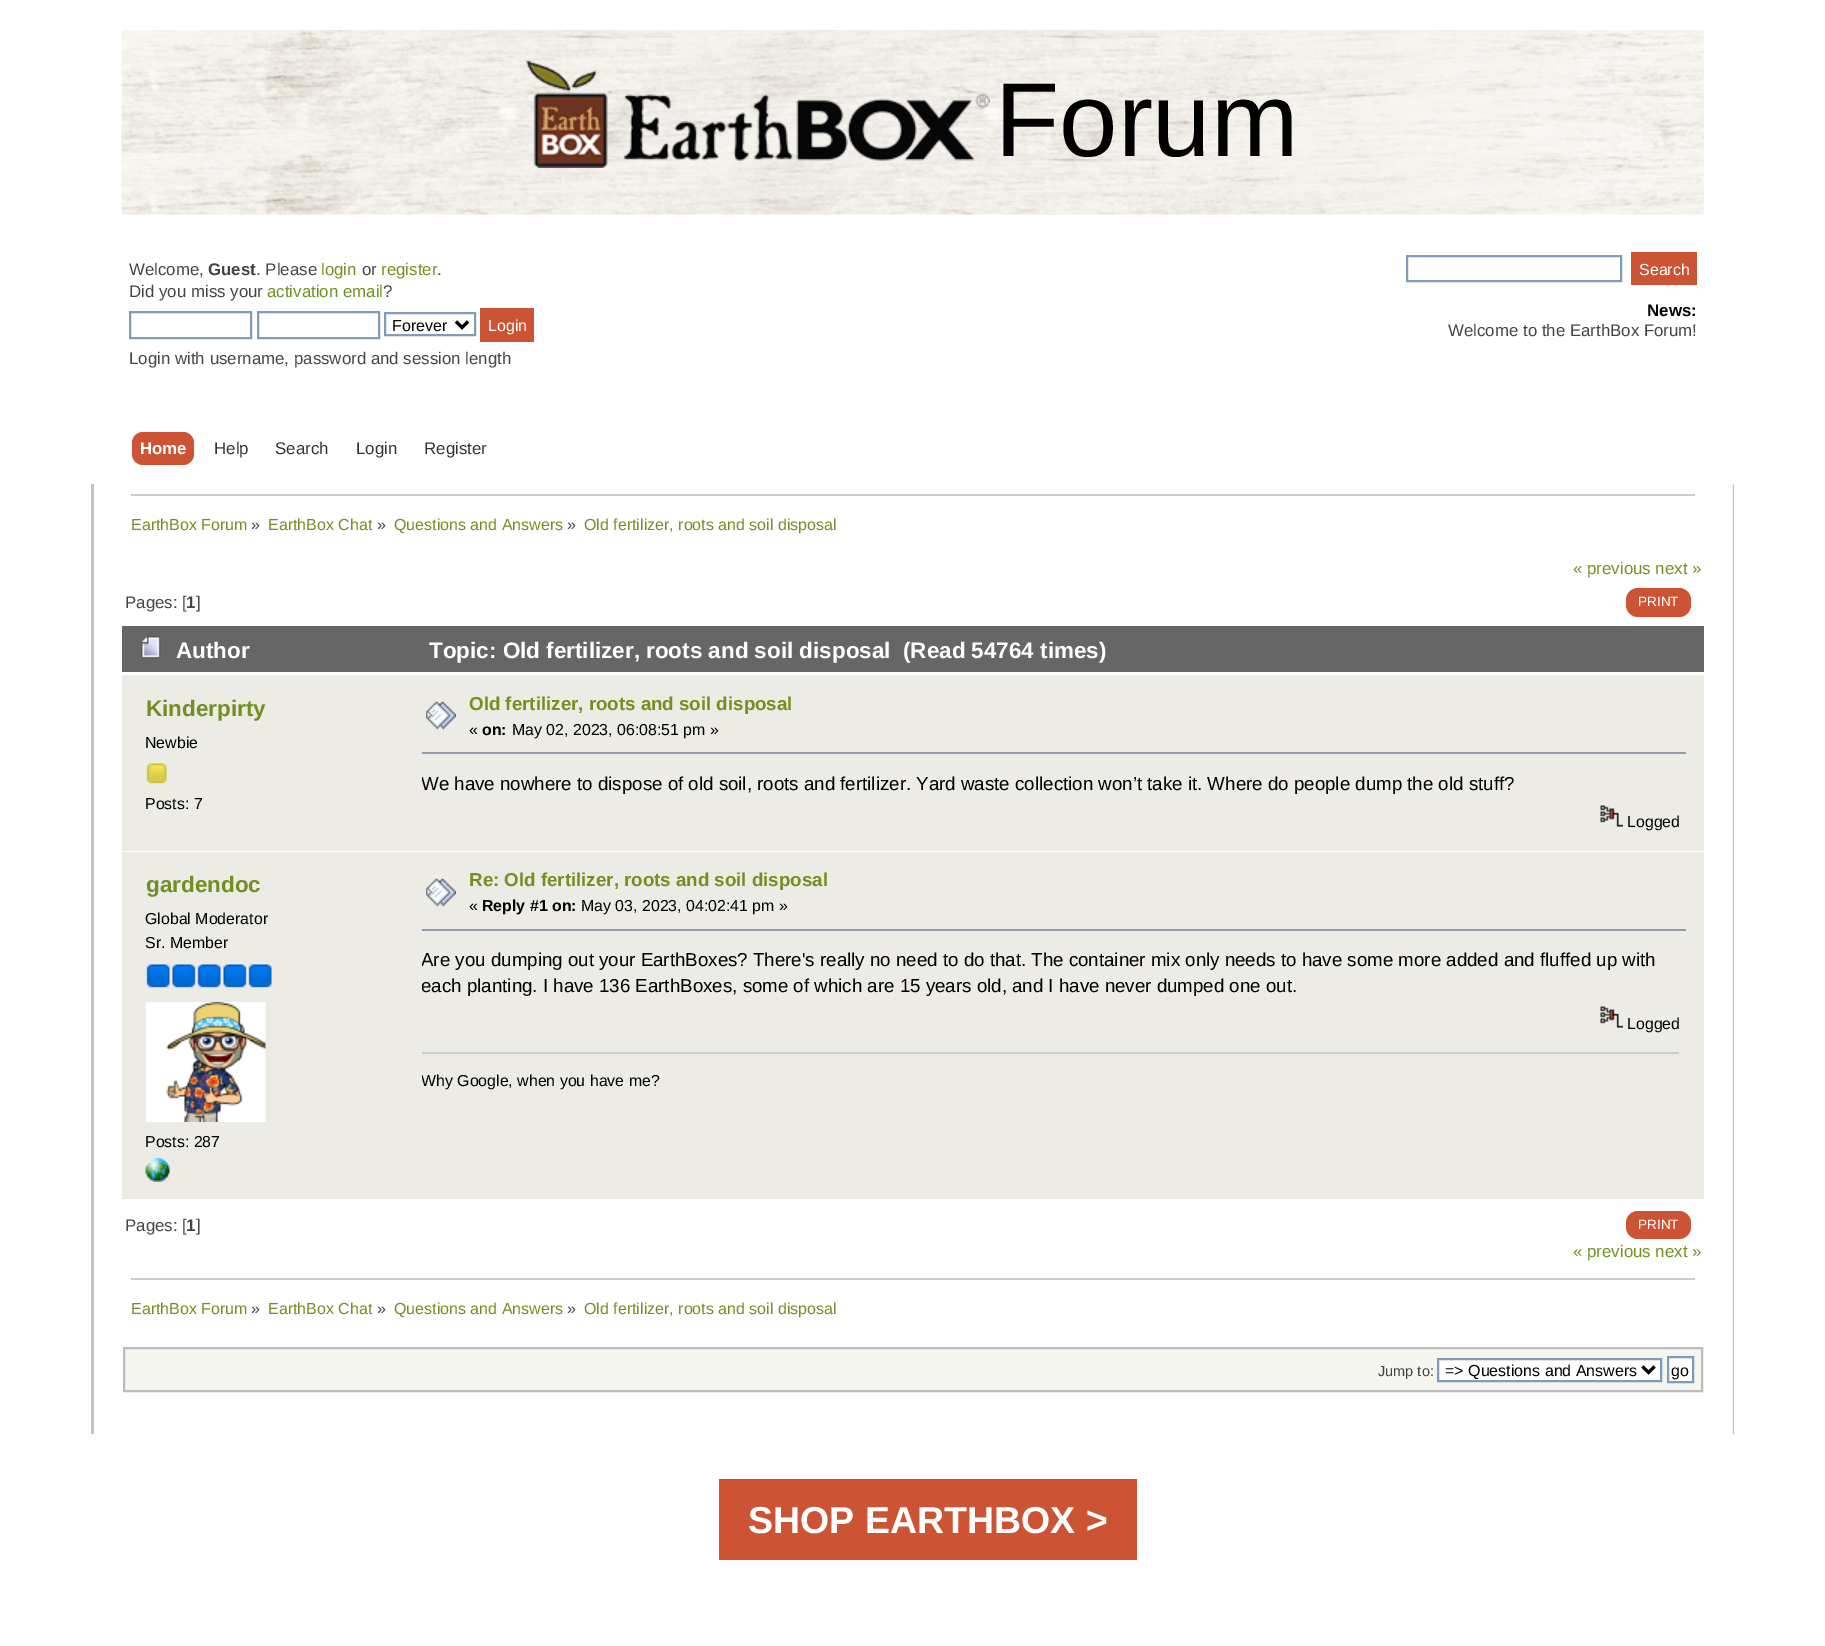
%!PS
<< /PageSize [1825 1646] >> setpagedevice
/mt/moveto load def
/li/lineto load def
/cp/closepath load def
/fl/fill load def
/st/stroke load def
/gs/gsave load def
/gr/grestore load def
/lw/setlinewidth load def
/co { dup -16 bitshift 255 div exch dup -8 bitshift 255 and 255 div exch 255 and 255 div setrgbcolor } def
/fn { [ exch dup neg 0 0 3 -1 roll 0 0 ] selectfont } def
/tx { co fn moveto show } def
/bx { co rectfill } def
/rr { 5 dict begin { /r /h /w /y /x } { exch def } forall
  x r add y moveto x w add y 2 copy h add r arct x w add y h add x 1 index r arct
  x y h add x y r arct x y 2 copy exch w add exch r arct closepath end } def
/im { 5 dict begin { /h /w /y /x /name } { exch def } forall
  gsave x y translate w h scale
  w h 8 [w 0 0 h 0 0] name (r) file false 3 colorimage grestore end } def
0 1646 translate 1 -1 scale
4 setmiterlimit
0 0 1825 1646 16#FFFFFF bx
(media/1.raw) 121 30 1583 185 im
(media/2.raw) 526 60 464 108 im
16#7F9DB9 co
2 lw
130 312 121 26 rectstroke
258 312 121 26 rectstroke
385 313 90 22 rectstroke
16#000000 co
3 lw
456 321.5 mt 462 327.5 li 468 321.5 li st
480 308 54 34 16#CC5334 bx
16#7F9DB9 co
2 lw
1407 256 214 25 rectstroke
1631 252 66 33 16#CC5334 bx
132 432 62 33 11 rr fl
91 484 3 950 16#C3C3C3 bx
(media/3.raw) 1732 484 2 950 im
131 494 1564 2 16#CCCCCC bx
16#CC5334 co
1626 588 65 29 12 rr fl
122 626 1582 46 16#666666 bx
(media/4.raw) 141 636 20 23 im
122 675 1582 176 16#ECEBE5 bx
(media/5.raw) 146 763 21 21 im
(media/6.raw) 426 701 30 29 im
422 752 1264 2 16#9999AA bx
(media/7.raw) 1600 805 23 22 im
122 852 1582 347 16#ECEBE5 bx
(media/8.raw) 146 964 24 24 im
(media/9.raw) 172 964 24 24 im
(media/8.raw) 197 964 24 24 im
(media/9.raw) 223 964 24 24 im
(media/8.raw) 248 964 24 24 im
(media/10.raw) 145 1002 121 120 im
(media/11.raw) 145 1158 25 24 im
(media/6.raw) 426 878 30 29 im
422 929 1264 2 16#9999AA bx
(media/7.raw) 1600 1006 23 22 im
422 1052 1257 2 16#CCCCCC bx
16#CC5334 co
1626 1211 65 28 12 rr fl
131 1278 1564 2 16#CCCCCC bx
16#F5F5F0 co
124 1348 mt 1702 1348 li 1702 1391 li 124 1391 li cp gs fl gr
16#BBBBBB co
st
16#FFFFFF co
1438 1359 mt 1661 1359 li 1661 1381 li 1438 1381 li cp gs fl gr
16#7F9DB9 co
st
16#000000 co
3 lw
1642.5 1366.5 mt 1648.5 1372.5 li 1654.5 1366.5 li st
16#FFFFFF co
1668 1357 mt 1693 1357 li 1693 1382 li 1668 1382 li cp gs fl gr
16#7F9DB9 co
2 lw
st
719 1479 418 81 16#CC5334 bx
(Forum) 995 156 /LiberationSans-Regular 105 16#000000 tx
(Welcome,) 129 275 /LiberationSans-Regular 16.85 16#444444 tx
(Guest) 208 275 /LiberationSans-Bold 16.85 16#444444 tx
(. Please) 256 275 /LiberationSans-Regular 16.85 16#444444 tx
(login) 321 275 /LiberationSans-Regular 16.85 16#748E22 tx
(or) 362 275 /LiberationSans-Regular 16.85 16#444444 tx
(register) 381 275 /LiberationSans-Regular 16.85 16#748E22 tx
(.) 437 275 /LiberationSans-Regular 16.85 16#444444 tx
(Did you miss your) 129 297 /LiberationSans-Regular 16.85 16#444444 tx
(activation email) 267 297 /LiberationSans-Regular 16.85 16#748E22 tx
(?) 383 297 /LiberationSans-Regular 16.85 16#444444 tx
(Forever) 392 331 /LiberationSans-Regular 16 16#000000 tx
(Login) 488 331 /LiberationSans-Regular 16 16#FFFFFF tx
(Login with username, password and session length) 129 364 /LiberationSans-Regular 16.85 16#444444 tx
(Search) 1639 275 /LiberationSans-Regular 16 16#FFFFFF tx
(News:) 1647 316 /LiberationSans-Bold 16.85 16#000000 tx
(Welcome to the EarthBox Forum!) 1448 336 /LiberationSans-Regular 16.85 16#444444 tx
(Home) 140 454 /LiberationSans-Bold 16.85 16#FFFFFF tx
(Help) 214 454 /LiberationSans-Regular 16.85 16#373232 tx
(Search) 275 454 /LiberationSans-Regular 16.85 16#373232 tx
(Login) 356 454 /LiberationSans-Regular 16.85 16#373232 tx
(Register) 424 454 /LiberationSans-Regular 16.85 16#373232 tx
(EarthBox Forum) 131 530 /LiberationSans-Regular 16 16#748E22 tx
(») 251 530 /LiberationSans-Regular 16 16#444444 tx
(EarthBox Chat) 268 530 /LiberationSans-Regular 16 16#748E22 tx
(») 377 530 /LiberationSans-Regular 16 16#444444 tx
(Questions and Answers) 394 530 /LiberationSans-Regular 16 16#748E22 tx
(») 567 530 /LiberationSans-Regular 16 16#444444 tx
(Old fertilizer, roots and soil disposal) 584 530 /LiberationSans-Regular 16 16#748E22 tx
(« previous next ») 1573 574 /LiberationSans-Regular 16.85 16#748E22 tx
(Pages: [) 125 608 /LiberationSans-Regular 16.85 16#444444 tx
(1) 186 608 /LiberationSans-Bold 16.85 16#444444 tx
(]) 196 608 /LiberationSans-Regular 16.85 16#444444 tx
(PRINT) 1638 606 /LiberationSans-Regular 13.5 16#FFFFFF tx
(Author) 176 658 /LiberationSans-Bold 22.45 16#FFFFFF tx
(Topic: Old fertilizer, roots and soil disposal  \(Read 54764 times\)) 429 658 /LiberationSans-Bold 22.45 16#FFFFFF tx
(Kinderpirty) 146 716 /LiberationSans-Bold 22.45 16#748E22 tx
(Newbie) 145 748 /LiberationSans-Regular 15.9 16#000000 tx
(Posts: 7) 145 809 /LiberationSans-Regular 15.9 16#000000 tx
(Old fertilizer, roots and soil disposal) 469 710 /LiberationSans-Bold 18.72 16#748E22 tx
(«) 469 735 /LiberationSans-Regular 15.9 16#000000 tx
(on:) 482 735 /LiberationSans-Bold 15.9 16#000000 tx
(May 02, 2023, 06:08:51 pm ») 512 735 /LiberationSans-Regular 15.9 16#000000 tx
gs
422 750 1282 54 rectclip
(We have nowhere to dispose of old soil, roots and fertilizer. Yard waste collection won’t take it. Where do people dump the old stuff?) 421 790 /LiberationSans-Regular 18.72 16#000000 tx
gr
(Logged) 1627 827 /LiberationSans-Regular 15.9 16#000000 tx
(gardendoc) 146 892 /LiberationSans-Bold 22.45 16#748E22 tx
(Global Moderator) 145 924 /LiberationSans-Regular 15.9 16#000000 tx
(Sr. Member) 145 948 /LiberationSans-Regular 15.9 16#000000 tx
(Posts: 287) 145 1147 /LiberationSans-Regular 15.9 16#000000 tx
(Re: Old fertilizer, roots and soil disposal) 469 886 /LiberationSans-Bold 18.72 16#748E22 tx
(«) 469 911 /LiberationSans-Regular 15.9 16#000000 tx
(Reply #1 on:) 482 911 /LiberationSans-Bold 15.9 16#000000 tx
(May 03, 2023, 04:02:41 pm ») 581 911 /LiberationSans-Regular 15.9 16#000000 tx
gs
422 926 1282 79 rectclip
(Are you dumping out your EarthBoxes? There's really no need to do that. The container mix only needs to have some more added and fluffed up with) 421 966 /LiberationSans-Regular 18.72 16#000000 tx
(each planting. I have 136 EarthBoxes, some of which are 15 years old, and I have never dumped one out.) 421 992 /LiberationSans-Regular 18.72 16#000000 tx
gr
(Logged) 1627 1029 /LiberationSans-Regular 15.9 16#000000 tx
gs
422 1053 1257 44 rectclip
(Why Google, when you have me?) 421 1086 /LiberationSans-Regular 15.9 16#000000 tx
gr
(Pages: [) 125 1231 /LiberationSans-Regular 16.85 16#444444 tx
(1) 186 1231 /LiberationSans-Bold 16.85 16#444444 tx
(]) 196 1231 /LiberationSans-Regular 16.85 16#444444 tx
(PRINT) 1638 1229 /LiberationSans-Regular 13.5 16#FFFFFF tx
(« previous next ») 1573 1257 /LiberationSans-Regular 16.85 16#748E22 tx
(EarthBox Forum) 131 1314 /LiberationSans-Regular 16 16#748E22 tx
(») 251 1314 /LiberationSans-Regular 16 16#444444 tx
(EarthBox Chat) 268 1314 /LiberationSans-Regular 16 16#748E22 tx
(») 377 1314 /LiberationSans-Regular 16 16#444444 tx
(Questions and Answers) 394 1314 /LiberationSans-Regular 16 16#748E22 tx
(») 567 1314 /LiberationSans-Regular 16 16#444444 tx
(Old fertilizer, roots and soil disposal) 584 1314 /LiberationSans-Regular 16 16#748E22 tx
(Jump to:) 1378 1376 /LiberationSans-Regular 14.5 16#444444 tx
(=> Questions and Answers) 1445 1376 /LiberationSans-Regular 16 16#000000 tx
(go) 1671 1376 /LiberationSans-Regular 16 16#000000 tx
(SHOP EARTHBOX >) 748 1533 /LiberationSans-Bold 37.5 16#FFFFFF tx
showpage
